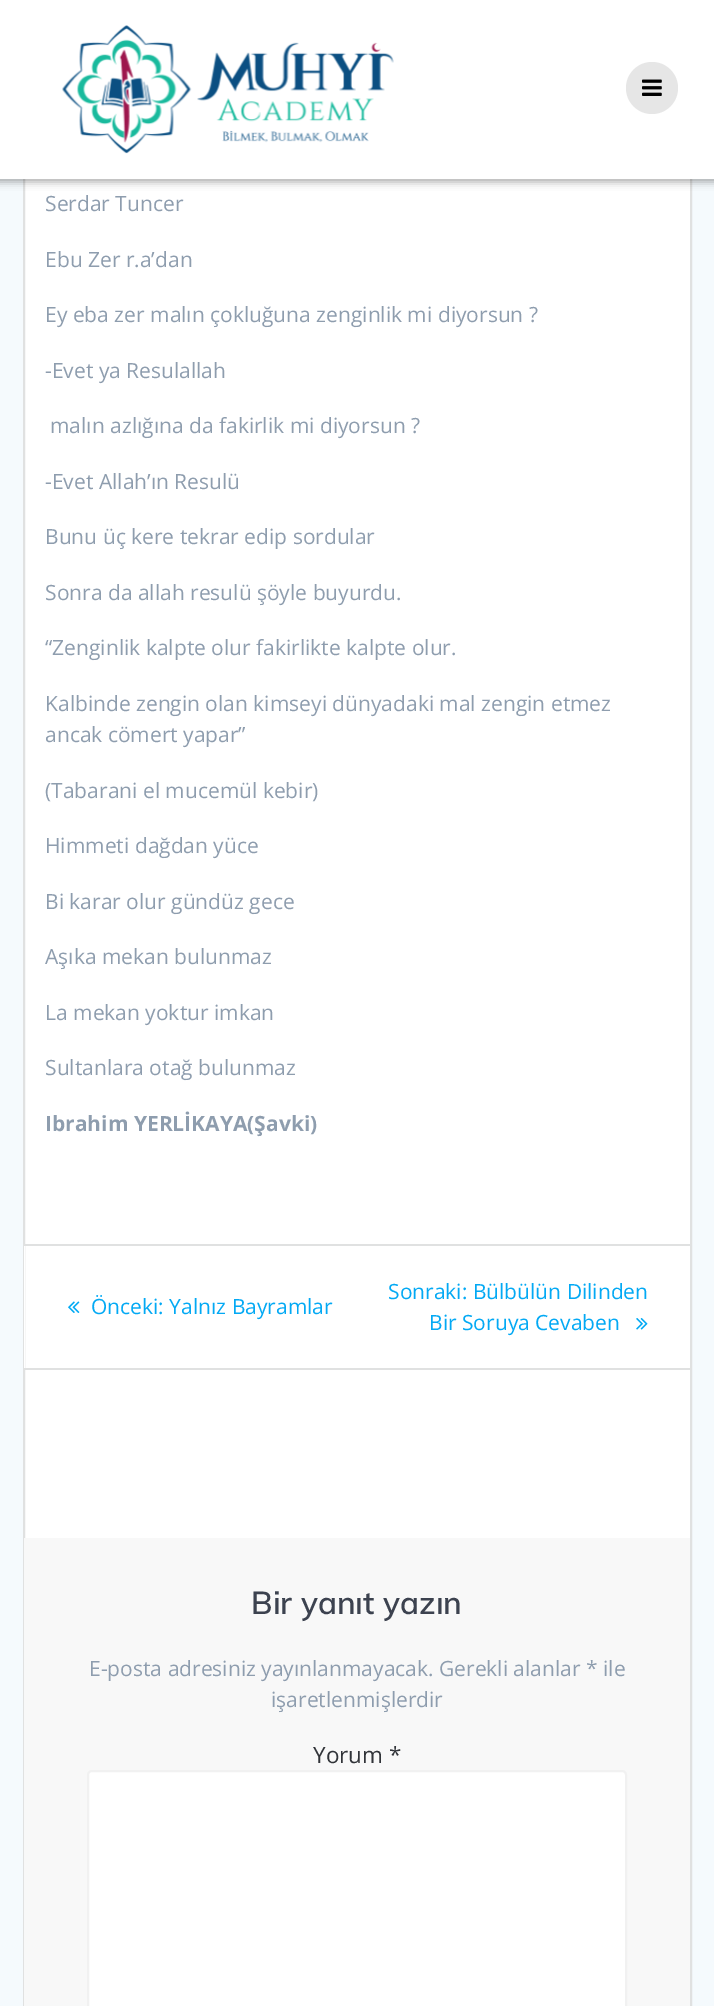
%!PS
<< /PageSize [714 2006] /PageUsesTransparency true >> setpagedevice
/fl/fill load def
/st/stroke load def
/gs/gsave load def
/gr/grestore load def
/lw/setlinewidth load def
/co { dup -16 bitshift 255 div exch dup -8 bitshift 255 and 255 div exch 255 and 255 div setrgbcolor } def
/fn { [ exch dup neg 0 0 3 -1 roll 0 0 ] selectfont } def
/tx { co fn moveto show } def
/bx { co rectfill } def
/al { dup .setfillconstantalpha .setstrokeconstantalpha } def
/ci { newpath 0 360 arc closepath } def
/rr { 5 dict begin { /r /h /w /y /x } { exch def } forall
  x r add y moveto x w add y 2 copy h add r arct x w add y h add x 1 index r arct
  x y h add x y r arct x y 2 copy exch w add exch r arct closepath end } def
/sh { 12 dict begin { /a /b /q /h /w /y /x } { exch def } forall gsave /was 0 def
  9 -2 -9 { dup b mul 4 div /e exch def 1 sub .425 mul 2.718 exch exp 1 add a .99 .min exch div /now exch def
    1 1 now sub 1 was sub div sub al /was now def
    w h .min e 2 mul add 0 gt { x e sub y e sub w e 2 mul add h e 2 mul add
      q e add b .6 mul add w h .min 2 div e add .min 0 .max rr fill } if } for grestore end } def
/im { 5 dict begin { /h /w /y /x /name } { exch def } forall
  gsave x y translate w h scale
  w h 8 [w 0 0 h 0 0] name (r) file false 3 colorimage grestore end } def
0 .pushpdf14devicefilter
0 2006 translate 1 -1 scale
4 setmiterlimit
0 0 714 2006 16#F5FAFD bx
25 179 665 1359 16#FFFFFF bx
16#E0E1E1 co
2 lw
24 -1 667 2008 rectstroke
16#000000 co
-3 -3 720 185 0 4 .33 sh
0 0 714 179 16#FFFFFF bx
(media/1.raw) 62 25 332 129 im
16#E6E6E6 co
652 88 26 ci fl
(media/2.raw) 642 79 20 17 im
24 1246 1 122 16#FFFFFF bx
24 1244 666 2 16#E0E1E1 bx
24 1368 666 2 16#E0E1E1 bx
(media/3.raw) 68 1301 12 12 im
(media/4.raw) 636 1318 12 12 im
24 1538 666 468 16#F8F8F8 bx
16#FFFFFF co
88 1771 538 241 4 rr gs fl gr
16#F1F1F1 co
st
(Serdar Tuncer) 45 211 /OpenSans-Regular 21 16#8E9DAE tx
(Ebu Zer r.a’dan) 45 267 /OpenSans-Regular 21 16#8E9DAE tx
(Ey eba zer malın çokluğuna zenginlik mi diyorsun ?) 45 322 /OpenSans-Regular 21 16#8E9DAE tx
(-Evet ya Resulallah) 45 378 /OpenSans-Regular 21 16#8E9DAE tx
(malın azlığına da fakirlik mi diyorsun ?) 50 433 /OpenSans-Regular 21 16#8E9DAE tx
(-Evet Allah’ın Resulü) 45 489 /OpenSans-Regular 21 16#8E9DAE tx
(Bunu üç kere tekrar edip sordular) 45 544 /OpenSans-Regular 21 16#8E9DAE tx
(Sonra da allah resulü şöyle buyurdu.) 45 600 /OpenSans-Regular 21 16#8E9DAE tx
(“Zenginlik kalpte olur fakirlikte kalpte olur.) 45 655 /OpenSans-Regular 21 16#8E9DAE tx
(Kalbinde zengin olan kimseyi dünyadaki mal zengin etmez) 45 711 /OpenSans-Regular 21 16#8E9DAE tx
(ancak cömert yapar”) 45 742 /OpenSans-Regular 21 16#8E9DAE tx
(\(Tabarani el mucemül kebir\)) 45 798 /OpenSans-Regular 21 16#8E9DAE tx
(Himmeti dağdan yüce) 45 853 /OpenSans-Regular 21 16#8E9DAE tx
(Bi karar olur gündüz gece) 45 909 /OpenSans-Regular 21 16#8E9DAE tx
(Aşıka mekan bulunmaz) 45 964 /OpenSans-Regular 21 16#8E9DAE tx
(La mekan yoktur imkan) 45 1020 /OpenSans-Regular 21 16#8E9DAE tx
(Sultanlara otağ bulunmaz) 45 1075 /OpenSans-Regular 21 16#8E9DAE tx
(Ibrahim YERLİKAYA\(Şavki\)) 45 1131 /OpenSans-Bold 21 16#8E9DAE tx
(Önceki: Yalnız Bayramlar) 91 1314 /OpenSans-Regular 21 16#03A9F4 tx
(Sonraki: Bülbülün Dilinden) 388 1299 /OpenSans-Regular 21 16#03A9F4 tx
(Bir Soruya Cevaben) 429 1330 /OpenSans-Regular 21 16#03A9F4 tx
(Bir yanıt yazın) 251 1614 /Muli-SemiBold 31.5 16#3C424F tx
(E-posta adresiniz yayınlanmayacak. Gerekli alanlar * ile) 89 1676 /OpenSans-Regular 21 16#8E9DAE tx
(işaretlenmişlerdir) 271 1707 /OpenSans-Regular 21 16#8E9DAE tx
(Yorum *) 313 1763 /OpenSans-Regular 22.5 16#313439 tx
.poppdf14devicefilter showpage
